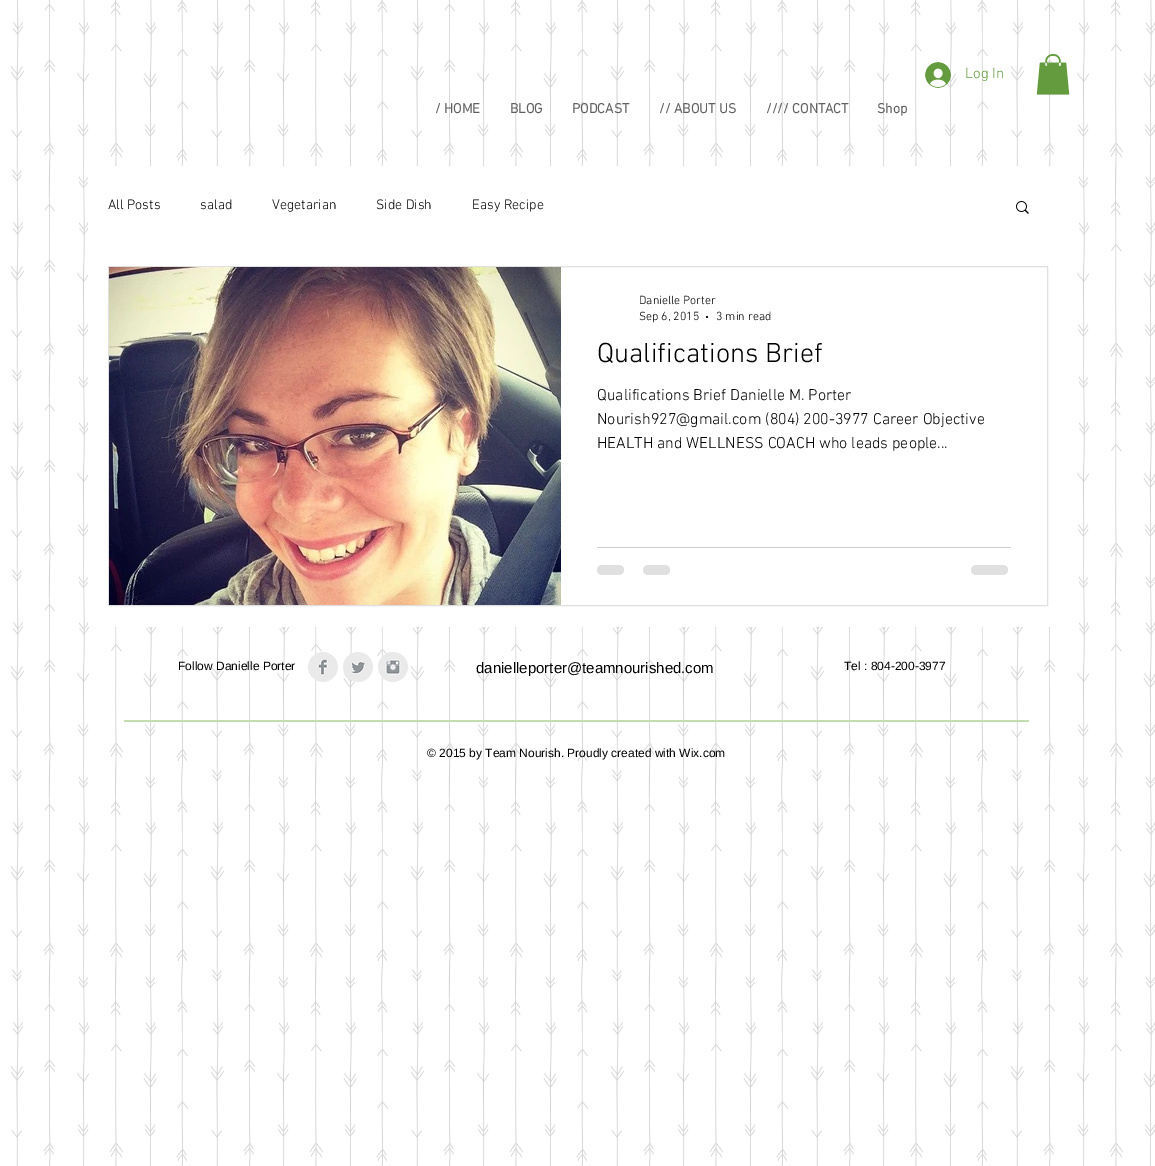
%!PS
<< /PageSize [1155 1166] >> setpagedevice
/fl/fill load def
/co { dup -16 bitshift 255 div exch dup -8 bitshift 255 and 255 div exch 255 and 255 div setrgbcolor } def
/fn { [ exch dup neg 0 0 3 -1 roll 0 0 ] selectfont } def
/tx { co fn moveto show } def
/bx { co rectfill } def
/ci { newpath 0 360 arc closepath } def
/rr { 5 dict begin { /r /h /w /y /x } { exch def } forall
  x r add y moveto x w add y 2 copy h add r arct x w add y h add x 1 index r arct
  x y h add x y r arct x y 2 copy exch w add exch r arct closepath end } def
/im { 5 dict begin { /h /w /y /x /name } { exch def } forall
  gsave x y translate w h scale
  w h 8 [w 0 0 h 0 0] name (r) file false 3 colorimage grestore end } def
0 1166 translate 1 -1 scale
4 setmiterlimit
0 0 1155 1166 16#FFFFFF bx
(media/1.raw) 11 0 1144 1166 im
(media/2.raw) 925 62 26 26 im
(media/3.raw) 1036 54 34 41 im
88 166 968 461 16#FFFFFF bx
(media/4.raw) 1016 201 13 13 im
16#E0E0E0 co
108.5 266.5 939 339 rectstroke
(media/5.raw) 109 267 452 338 im
16#000000 co
707 317 1 ci fl
597 547 414 1 16#CCCCCC bx
16#E0E0E0 co
597 565 27 10 5 rr fl
643 565 27 10 5 rr fl
971 565 37 10 5 rr fl
(media/6.raw) 308 652 30 30 im
(media/7.raw) 343 652 30 30 im
(media/8.raw) 378 652 30 30 im
124 720 905 2 16#C3DDB1 bx
(Log In) 965 78 /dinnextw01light-Light 15 16#639B3E tx
(/ HOME) 435 113 /dinnextw01light-Bold 14 16#606060 tx
(BLOG) 510 113 /dinnextw01light-Bold 14 16#606060 tx
(PODCAST) 572 113 /dinnextw01light-Bold 14 16#606060 tx
(// ABOUT US) 659 113 /dinnextw01light-Bold 14 16#606060 tx
(//// CONTACT) 766 113 /dinnextw01light-Bold 14 16#606060 tx
(Shop) 877 113 /dinnextw01light-Bold 14 16#606060 tx
(All Posts) 108 209 /dinnextw01light-Light 14 16#000000 tx
(salad) 200 209 /dinnextw01light-Light 14 16#000000 tx
(Vegetarian) 272 209 /dinnextw01light-Light 14 16#000000 tx
(Side Dish) 376 209 /dinnextw01light-Light 14 16#000000 tx
(Easy Recipe) 472 209 /dinnextw01light-Light 14 16#000000 tx
(Danielle Porter) 639 304 /dinnextw01light-Light 12 16#000000 tx
(Sep 6, 2015) 639 320 /dinnextw01light-Light 12 16#000000 tx
(3 min read) 716 320 /dinnextw01light-Light 12 16#000000 tx
(Qualifications Brief) 597 362 /dinnextw01light-Light 28 16#000000 tx
(Qualifications Brief Danielle M. Porter) 597 400 /dinnextw01light-Light 16 16#000000 tx
(Nourish927@gmail.com \(804\) 200-3977 Career Objective) 597 424 /dinnextw01light-Light 16 16#000000 tx
(HEALTH and WELLNESS COACH who leads people...) 597 448 /dinnextw01light-Light 16 16#000000 tx
(Follow Danielle Porter) 178 670 /LiberationSans-Regular 12 16#000000 tx
(danielleporter@teamnourished.com) 476 673 /LiberationSans-Regular 15 16#000000 tx
(Tel : 804-200-3977) 844 670 /LiberationSans-Regular 12 16#000000 tx
(© 2015 by Team Nourish. Proudly created with Wix.com) 427 757 /LiberationSans-Regular 12 16#000000 tx
showpage
